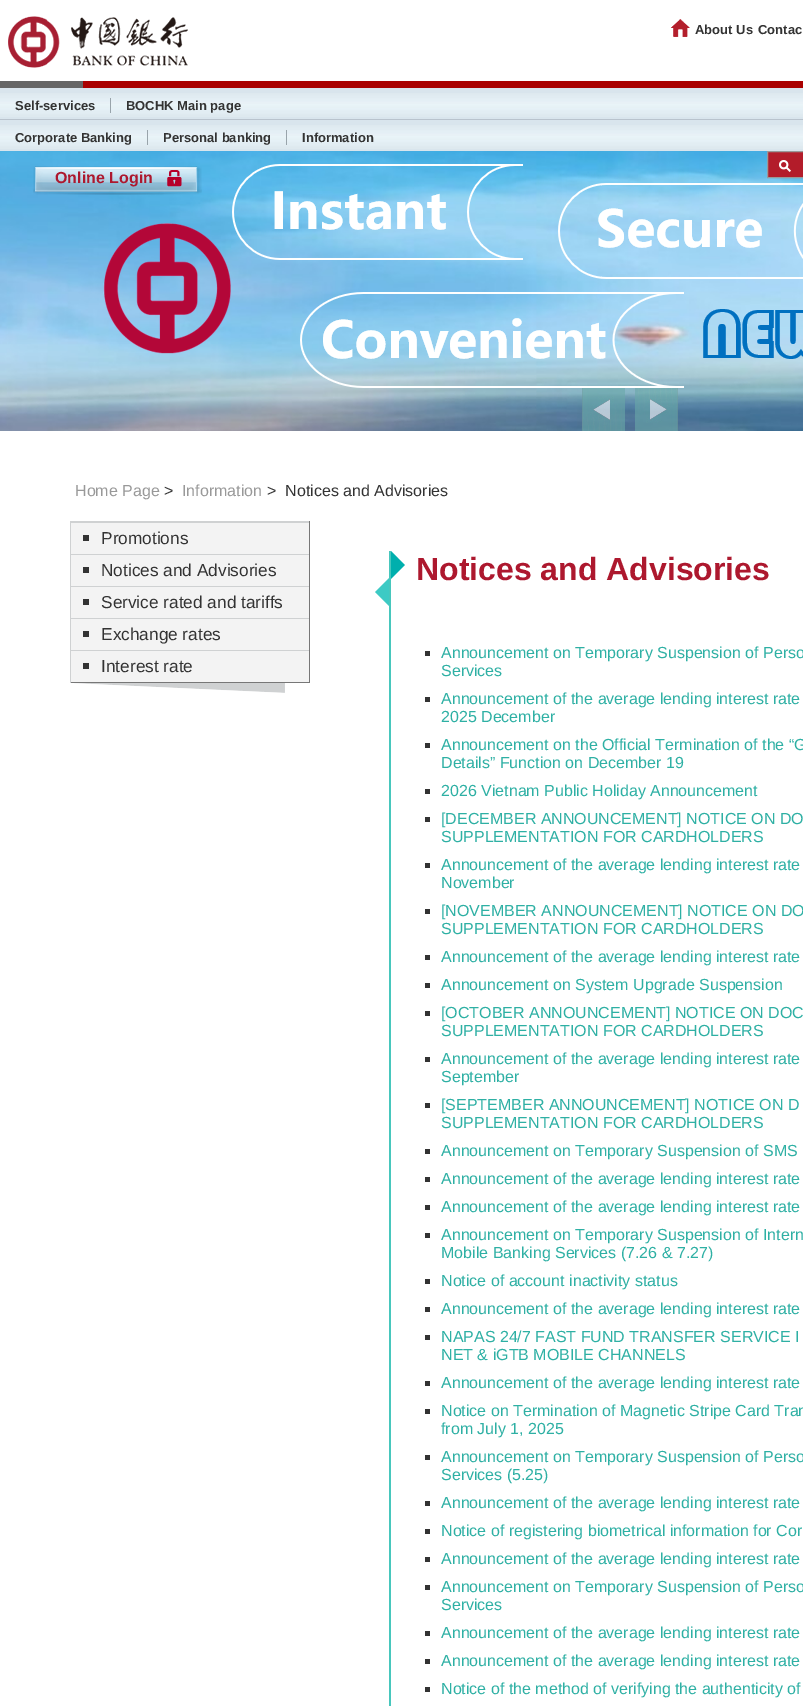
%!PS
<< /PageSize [803 1706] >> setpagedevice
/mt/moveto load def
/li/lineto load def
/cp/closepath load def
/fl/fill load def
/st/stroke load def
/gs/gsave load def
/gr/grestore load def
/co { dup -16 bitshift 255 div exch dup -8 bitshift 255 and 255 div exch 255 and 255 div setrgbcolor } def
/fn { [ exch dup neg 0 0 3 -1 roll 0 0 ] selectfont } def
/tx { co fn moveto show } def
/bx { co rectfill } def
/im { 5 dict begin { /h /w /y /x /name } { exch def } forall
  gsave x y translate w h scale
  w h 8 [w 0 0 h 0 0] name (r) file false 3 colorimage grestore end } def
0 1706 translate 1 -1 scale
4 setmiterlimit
0 0 803 1706 16#FFFFFF bx
(media/1.raw) 8 16 180 52 im
(media/2.raw) 671 19 19 18 im
0 81 83 7 16#666666 bx
83 81 720 7 16#AA0000 bx
0 88 803 31 16#D9E5ED bx
(media/3.raw) 0 93 803 24 im
110 98 1 15 16#99A4AB bx
0 120 803 31 16#D9E5ED bx
(media/3.raw) 0 125 803 24 im
0 119 803 1 16#B9C3CD bx
147 130 1 15 16#99A4AB bx
286 130 1 15 16#99A4AB bx
(media/6.raw) 0 151 803 280 im
(media/4.raw) 33 166 169 29 im
(media/5.raw) 167 170 15 17 im
(media/7.raw) 582 388 43 43 im
(media/8.raw) 635 388 43 43 im
16#B31C2A co
767.5 151.5 mt 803.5 151.5 li 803.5 177.5 li 767.5 177.5 li cp gs fl gr
16#999999 co
st
(media/9.raw) 779 160 12 12 im
71 523 238 159 16#F3F3F3 bx
70 521 240 1 16#CFD1D2 bx
309 521 1 162 16#777777 bx
70 682 240 1 16#777777 bx
70 521 1 162 16#CFD1D2 bx
71 522 238 1 16#CFD1D2 bx
83 535 6 6 16#333333 bx
71 554 238 1 16#CFD1D2 bx
83 567 6 6 16#333333 bx
71 586 238 1 16#CFD1D2 bx
83 599 6 6 16#333333 bx
71 618 238 1 16#CFD1D2 bx
83 631 6 6 16#333333 bx
71 650 238 1 16#CFD1D2 bx
83 663 6 6 16#333333 bx
(media/10.raw) 74 683 211 10 im
(media/11.raw) 375 551 30 55 im
389 606 2 1100 16#47C7BD bx
425 651 5 5 16#333333 bx
425 697 5 5 16#333333 bx
425 743 5 5 16#333333 bx
425 789 5 5 16#333333 bx
425 817 5 5 16#333333 bx
425 863 5 5 16#333333 bx
425 909 5 5 16#333333 bx
425 955 5 5 16#333333 bx
425 983 5 5 16#333333 bx
425 1011 5 5 16#333333 bx
425 1057 5 5 16#333333 bx
425 1103 5 5 16#333333 bx
425 1149 5 5 16#333333 bx
425 1177 5 5 16#333333 bx
425 1205 5 5 16#333333 bx
425 1233 5 5 16#333333 bx
425 1279 5 5 16#333333 bx
425 1307 5 5 16#333333 bx
425 1335 5 5 16#333333 bx
425 1381 5 5 16#333333 bx
425 1409 5 5 16#333333 bx
425 1455 5 5 16#333333 bx
425 1501 5 5 16#333333 bx
425 1529 5 5 16#333333 bx
425 1557 5 5 16#333333 bx
425 1585 5 5 16#333333 bx
425 1631 5 5 16#333333 bx
425 1659 5 5 16#333333 bx
425 1687 5 5 16#333333 bx
(About Us) 695 34 /LiberationSans-Bold 13 16#333333 tx
(Contac) 758 34 /LiberationSans-Bold 13 16#333333 tx
(Self-services) 15 110 /LiberationSans-Bold 13 16#333333 tx
(BOCHK Main page) 126 110 /LiberationSans-Bold 13 16#333333 tx
(Corporate Banking) 15 142 /LiberationSans-Bold 13 16#333333 tx
(Personal banking) 163 142 /LiberationSans-Bold 13 16#333333 tx
(Information) 302 142 /LiberationSans-Bold 13 16#333333 tx
(Online Login) 55 183 /LiberationSans-Bold 16 16#AD182E tx
(Home Page) 75 496 /LiberationSans-Regular 16 16#999999 tx
(>) 164 496 /LiberationSans-Regular 16 16#333333 tx
(Information) 182 496 /LiberationSans-Regular 16 16#999999 tx
(>  Notices and Advisories) 267 496 /LiberationSans-Regular 16 16#333333 tx
(Promotions) 101 544 /LiberationSans-Regular 17.25 16#333333 tx
(Notices and Advisories) 101 576 /LiberationSans-Regular 17.25 16#333333 tx
(Service rated and tariffs) 101 608 /LiberationSans-Regular 17.25 16#333333 tx
(Exchange rates) 101 640 /LiberationSans-Regular 17.25 16#333333 tx
(Interest rate) 101 672 /LiberationSans-Regular 17.25 16#333333 tx
(Notices and Advisories) 416 580 /LiberationSans-Bold 32 16#AD182E tx
(Announcement on Temporary Suspension of Perso) 441 658 /LiberationSans-Regular 16 16#2EB0A4 tx
(Services) 441 676 /LiberationSans-Regular 16 16#2EB0A4 tx
(Announcement of the average lending interest rate) 441 704 /LiberationSans-Regular 16 16#2EB0A4 tx
(2025 December) 441 722 /LiberationSans-Regular 16 16#2EB0A4 tx
(Announcement on the Official Termination of the “G) 441 750 /LiberationSans-Regular 16 16#2EB0A4 tx
(Details” Function on December 19) 441 768 /LiberationSans-Regular 16 16#2EB0A4 tx
(2026 Vietnam Public Holiday Announcement) 441 796 /LiberationSans-Regular 16 16#2EB0A4 tx
([DECEMBER ANNOUNCEMENT] NOTICE ON DO) 441 824 /LiberationSans-Regular 16 16#2EB0A4 tx
(SUPPLEMENTATION FOR CARDHOLDERS) 441 842 /LiberationSans-Regular 16 16#2EB0A4 tx
(Announcement of the average lending interest rate) 441 870 /LiberationSans-Regular 16 16#2EB0A4 tx
(November) 441 888 /LiberationSans-Regular 16 16#2EB0A4 tx
([NOVEMBER ANNOUNCEMENT] NOTICE ON DO) 441 916 /LiberationSans-Regular 16 16#2EB0A4 tx
(SUPPLEMENTATION FOR CARDHOLDERS) 441 934 /LiberationSans-Regular 16 16#2EB0A4 tx
(Announcement of the average lending interest rate) 441 962 /LiberationSans-Regular 16 16#2EB0A4 tx
(Announcement on System Upgrade Suspension) 441 990 /LiberationSans-Regular 16 16#2EB0A4 tx
([OCTOBER ANNOUNCEMENT] NOTICE ON DOC) 441 1018 /LiberationSans-Regular 16 16#2EB0A4 tx
(SUPPLEMENTATION FOR CARDHOLDERS) 441 1036 /LiberationSans-Regular 16 16#2EB0A4 tx
(Announcement of the average lending interest rate) 441 1064 /LiberationSans-Regular 16 16#2EB0A4 tx
(September) 441 1082 /LiberationSans-Regular 16 16#2EB0A4 tx
([SEPTEMBER ANNOUNCEMENT] NOTICE ON D) 441 1110 /LiberationSans-Regular 16 16#2EB0A4 tx
(SUPPLEMENTATION FOR CARDHOLDERS) 441 1128 /LiberationSans-Regular 16 16#2EB0A4 tx
(Announcement on Temporary Suspension of SMS) 441 1156 /LiberationSans-Regular 16 16#2EB0A4 tx
(Announcement of the average lending interest rate) 441 1184 /LiberationSans-Regular 16 16#2EB0A4 tx
(Announcement of the average lending interest rate) 441 1212 /LiberationSans-Regular 16 16#2EB0A4 tx
(Announcement on Temporary Suspension of Intern) 441 1240 /LiberationSans-Regular 16 16#2EB0A4 tx
(Mobile Banking Services \(7.26 & 7.27\)) 441 1258 /LiberationSans-Regular 16 16#2EB0A4 tx
(Notice of account inactivity status) 441 1286 /LiberationSans-Regular 16 16#2EB0A4 tx
(Announcement of the average lending interest rate) 441 1314 /LiberationSans-Regular 16 16#2EB0A4 tx
(NAPAS 24/7 FAST FUND TRANSFER SERVICE I) 441 1342 /LiberationSans-Regular 16 16#2EB0A4 tx
(NET & iGTB MOBILE CHANNELS) 441 1360 /LiberationSans-Regular 16 16#2EB0A4 tx
(Announcement of the average lending interest rate) 441 1388 /LiberationSans-Regular 16 16#2EB0A4 tx
(Notice on Termination of Magnetic Stripe Card Tran) 441 1416 /LiberationSans-Regular 16 16#2EB0A4 tx
(from July 1, 2025) 441 1434 /LiberationSans-Regular 16 16#2EB0A4 tx
(Announcement on Temporary Suspension of Perso) 441 1462 /LiberationSans-Regular 16 16#2EB0A4 tx
(Services \(5.25\)) 441 1480 /LiberationSans-Regular 16 16#2EB0A4 tx
(Announcement of the average lending interest rate) 441 1508 /LiberationSans-Regular 16 16#2EB0A4 tx
(Notice of registering biometrical information for Cor) 441 1536 /LiberationSans-Regular 16 16#2EB0A4 tx
(Announcement of the average lending interest rate) 441 1564 /LiberationSans-Regular 16 16#2EB0A4 tx
(Announcement on Temporary Suspension of Perso) 441 1592 /LiberationSans-Regular 16 16#2EB0A4 tx
(Services) 441 1610 /LiberationSans-Regular 16 16#2EB0A4 tx
(Announcement of the average lending interest rate) 441 1638 /LiberationSans-Regular 16 16#2EB0A4 tx
(Announcement of the average lending interest rate) 441 1666 /LiberationSans-Regular 16 16#2EB0A4 tx
(Notice of the method of verifying the authenticity of) 441 1694 /LiberationSans-Regular 16 16#2EB0A4 tx
showpage
